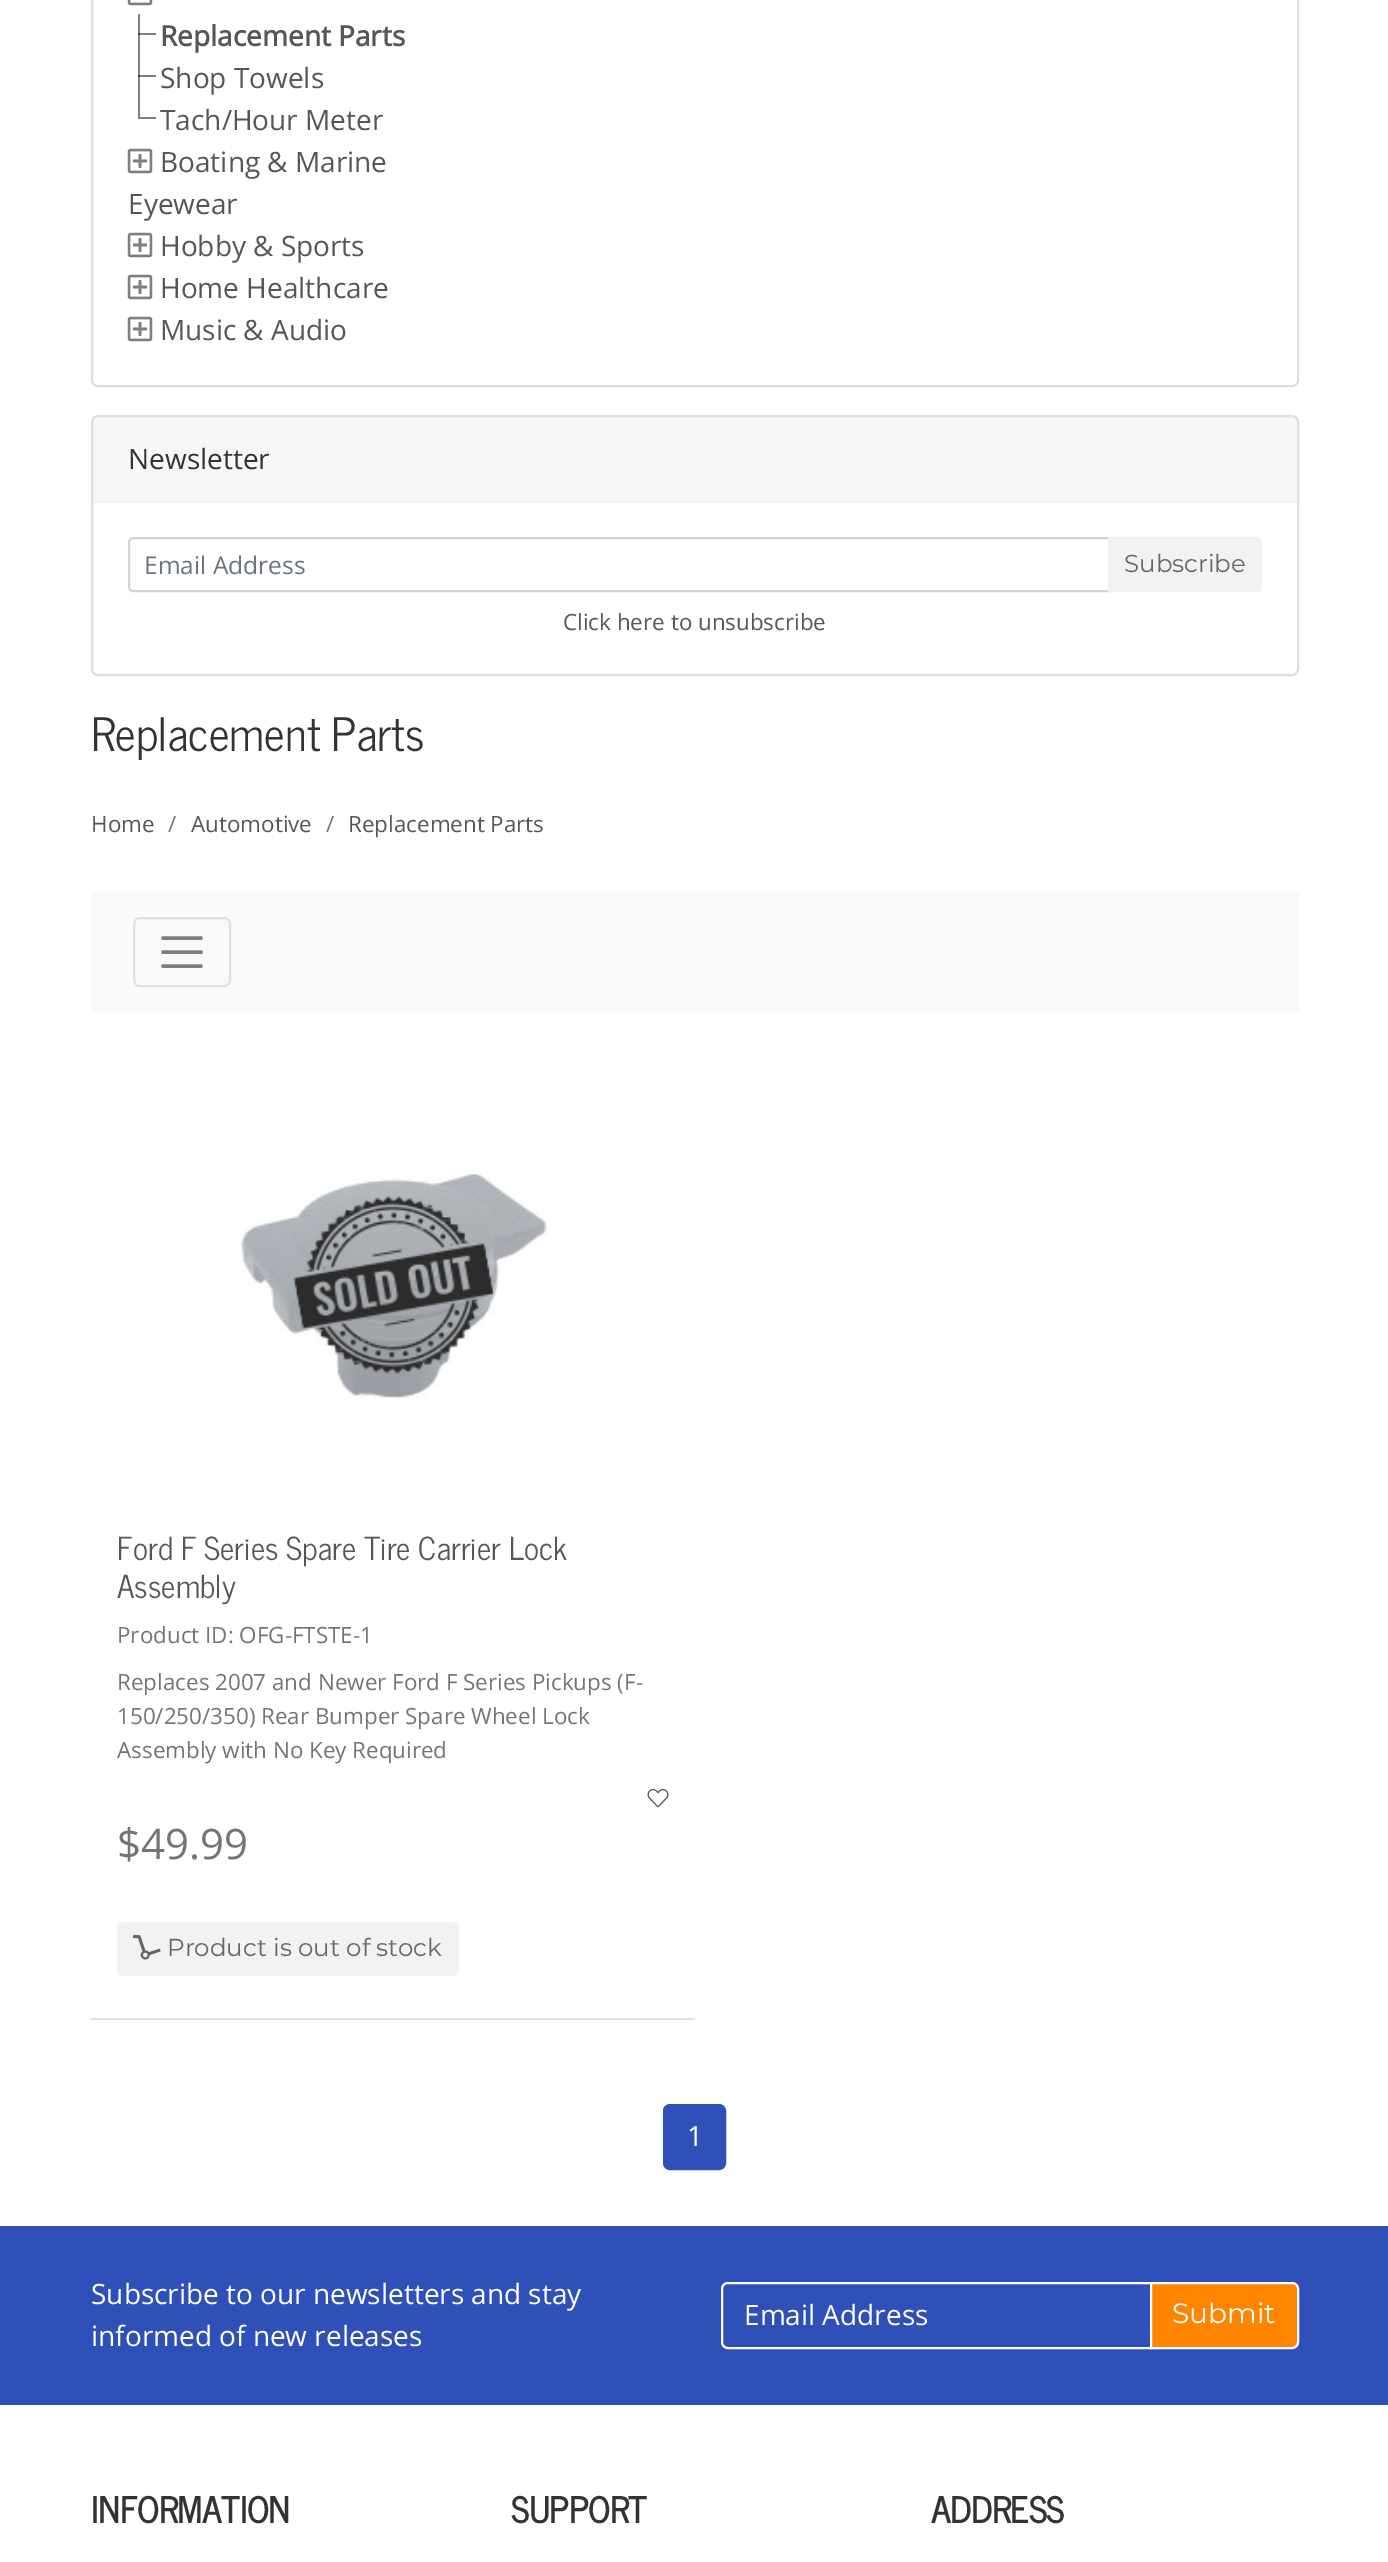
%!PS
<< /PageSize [1388 2562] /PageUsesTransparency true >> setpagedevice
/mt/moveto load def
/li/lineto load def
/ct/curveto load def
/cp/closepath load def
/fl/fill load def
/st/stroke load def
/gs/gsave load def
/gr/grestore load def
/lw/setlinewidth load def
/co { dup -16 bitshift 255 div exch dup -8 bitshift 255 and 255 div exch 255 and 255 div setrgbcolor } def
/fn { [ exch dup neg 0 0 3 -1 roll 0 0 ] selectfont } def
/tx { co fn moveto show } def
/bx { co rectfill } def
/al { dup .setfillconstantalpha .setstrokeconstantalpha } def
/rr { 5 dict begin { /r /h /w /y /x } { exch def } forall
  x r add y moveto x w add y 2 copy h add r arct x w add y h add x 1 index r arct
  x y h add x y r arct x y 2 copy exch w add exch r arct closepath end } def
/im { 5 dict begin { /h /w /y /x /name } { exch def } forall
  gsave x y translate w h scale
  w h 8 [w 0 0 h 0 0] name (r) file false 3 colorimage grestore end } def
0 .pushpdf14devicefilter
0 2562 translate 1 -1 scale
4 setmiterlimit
0 0 1388 2562 16#FFFFFF bx
138 75 18 2 16#808080 bx
138 33 18 2 16#808080 bx
16#DFDFDF co
2 lw
92 -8 1206 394 6 rr st
(media/1.raw) 127 0 26 6 im
138 14 2 103 16#808080 bx
138 75 2 2 16#404040 bx
138 33 2 2 16#404040 bx
138 117 18 2 16#808080 bx
(media/2.raw) 127 148 26 26 im
(media/2.raw) 127 232 26 26 im
(media/2.raw) 127 274 26 26 im
(media/2.raw) 127 316 26 26 im
16#DFDFDF co
92 416 1206 259 6 rr st
0.03 al
93 417 1204 85 16#000000 bx
93 501 1204 2 16#000000 bx
1 al
16#CED4DA co
133 538 mt 1109 538 li 1109 591 li 133 591 li 131 591 129 589 129 587 ct 129 542 li 129 540 131 538 133 538 ct cp st
16#F3F2F2 co
1109 538 mt 1257 538 li 1259 538 1261 540 1261 542 ct 1261 587 li 1261 589 1259 591 1257 591 ct 1109 591 li cp gs fl gr
st
91 891 1208 122 16#F8F9FA bx
16#DFE0E1 co
134 918 96 68 6 rr st
16#7C7D7D co
3.5 lw
1 setlinecap
163 938 mt 201 938 li 163 952 mt 201 952 li 163 966 mt 201 966 li st
91 2018 604 2 16#DEE2E6 bx
(media/3.raw) 231 1164 326 239 im
(media/4.raw) 293 1196 201 178 im
(media/5.raw) 647 1788 22 20 im
16#F3F2F2 co
118 1923 340 52 4 rr gs fl gr
2 lw
0 setlinecap
st
(media/6.raw) 133 1935 28 25 im
16#2F50B9 co
664 2105 61 64 6 rr gs fl gr
st
0 2226 1388 179 16#2F50B9 bx
16#FFFFFF co
728 2283 mt 1151 2283 li 1151 2348 li 728 2348 li 724.5 2348 722 2345.5 722 2342 ct 722 2289 li 722 2285.5 724.5 2283 728 2283 ct cp st
16#FF8400 co
1151 2283 mt 1292 2283 li 1295.5 2283 1298 2285.5 1298 2289 ct 1298 2342 li 1298 2345.5 1295.5 2348 1292 2348 ct 1151 2348 li cp gs fl gr
16#FFFFFF co
st
(Replacement Parts) 160 46 /OpenSans-Bold 28 16#575555 tx
(Shop Towels) 160 88 /OpenSans-Regular 28 16#575555 tx
(Tach/Hour Meter) 160 130 /OpenSans-Regular 28 16#575555 tx
(Boating & Marine) 160 172 /OpenSans-Regular 28 16#575555 tx
(Eyewear) 128 214 /OpenSans-Regular 28 16#575555 tx
(Hobby & Sports) 160 256 /OpenSans-Regular 28 16#575555 tx
(Home Healthcare) 160 298 /OpenSans-Regular 28 16#575555 tx
(Music & Audio) 160 340 /OpenSans-Regular 28 16#575555 tx
(Newsletter) 128 469 /OpenSans-Regular 28 16#333333 tx
(Email Address) 144 574 /OpenSans-Regular 24.5 16#6C757D tx
(Subscribe) 1124 572 /Montserrat-Thin 24.5 16#666666 tx
(Click here to unsubscribe) 563 630 /OpenSans-Regular 22.4 16#575555 tx
(Replacement Parts) 91 751 /NewsCycle-Regular 45.5 16#333333 tx
(Home) 91 832 /OpenSans-Regular 22.4 16#575555 tx
(/) 168 832 /OpenSans-Regular 22.4 16#6C757D tx
(Automotive) 191 832 /OpenSans-Regular 22.4 16#575555 tx
(/) 326 832 /OpenSans-Regular 22.4 16#6C757D tx
(Replacement Parts) 348 832 /OpenSans-Regular 22.4 16#575555 tx
(Ford F Series Spare Tire Carrier Lock) 117 1560 /NewsCycle-Regular 31.5 16#575555 tx
(Assembly) 117 1598 /NewsCycle-Regular 31.5 16#575555 tx
(Product ID: OFG-FTSTE-1) 117 1643 /OpenSans-Regular 22.4 16#747474 tx
(Replaces 2007 and Newer Ford F Series Pickups \(F-) 117 1690 /OpenSans-Regular 22.4 16#747474 tx
(150/250/350\) Rear Bumper Spare Wheel Lock) 117 1724 /OpenSans-Regular 22.4 16#747474 tx
(Assembly with No Key Required) 117 1758 /OpenSans-Regular 22.4 16#747474 tx
($49.99) 117 1859 /OpenSans-Regular 42 16#747474 tx
(Product is out of stock) 167 1956 /Montserrat-Thin 24.5 16#666666 tx
(1) 687 2146 /OpenSans-Regular 28 16#FFFFFF tx
(Subscribe to our newsletters and stay) 91 2304 /OpenSans-Regular 28 16#FFFFFF tx
(informed of new releases) 91 2346 /OpenSans-Regular 28 16#FFFFFF tx
(Email Address) 744 2325 /OpenSans-Regular 28 16#FFFFFF tx
(Submit) 1172 2323 /Montserrat-Thin 28 16#FFFFFF tx
(INFORMATION) 91 2523 /NewsCycle-Bold 35 16#333333 tx
(SUPPORT) 511 2523 /NewsCycle-Bold 35 16#333333 tx
(ADDRESS) 931 2523 /NewsCycle-Bold 35 16#333333 tx
.poppdf14devicefilter showpage
